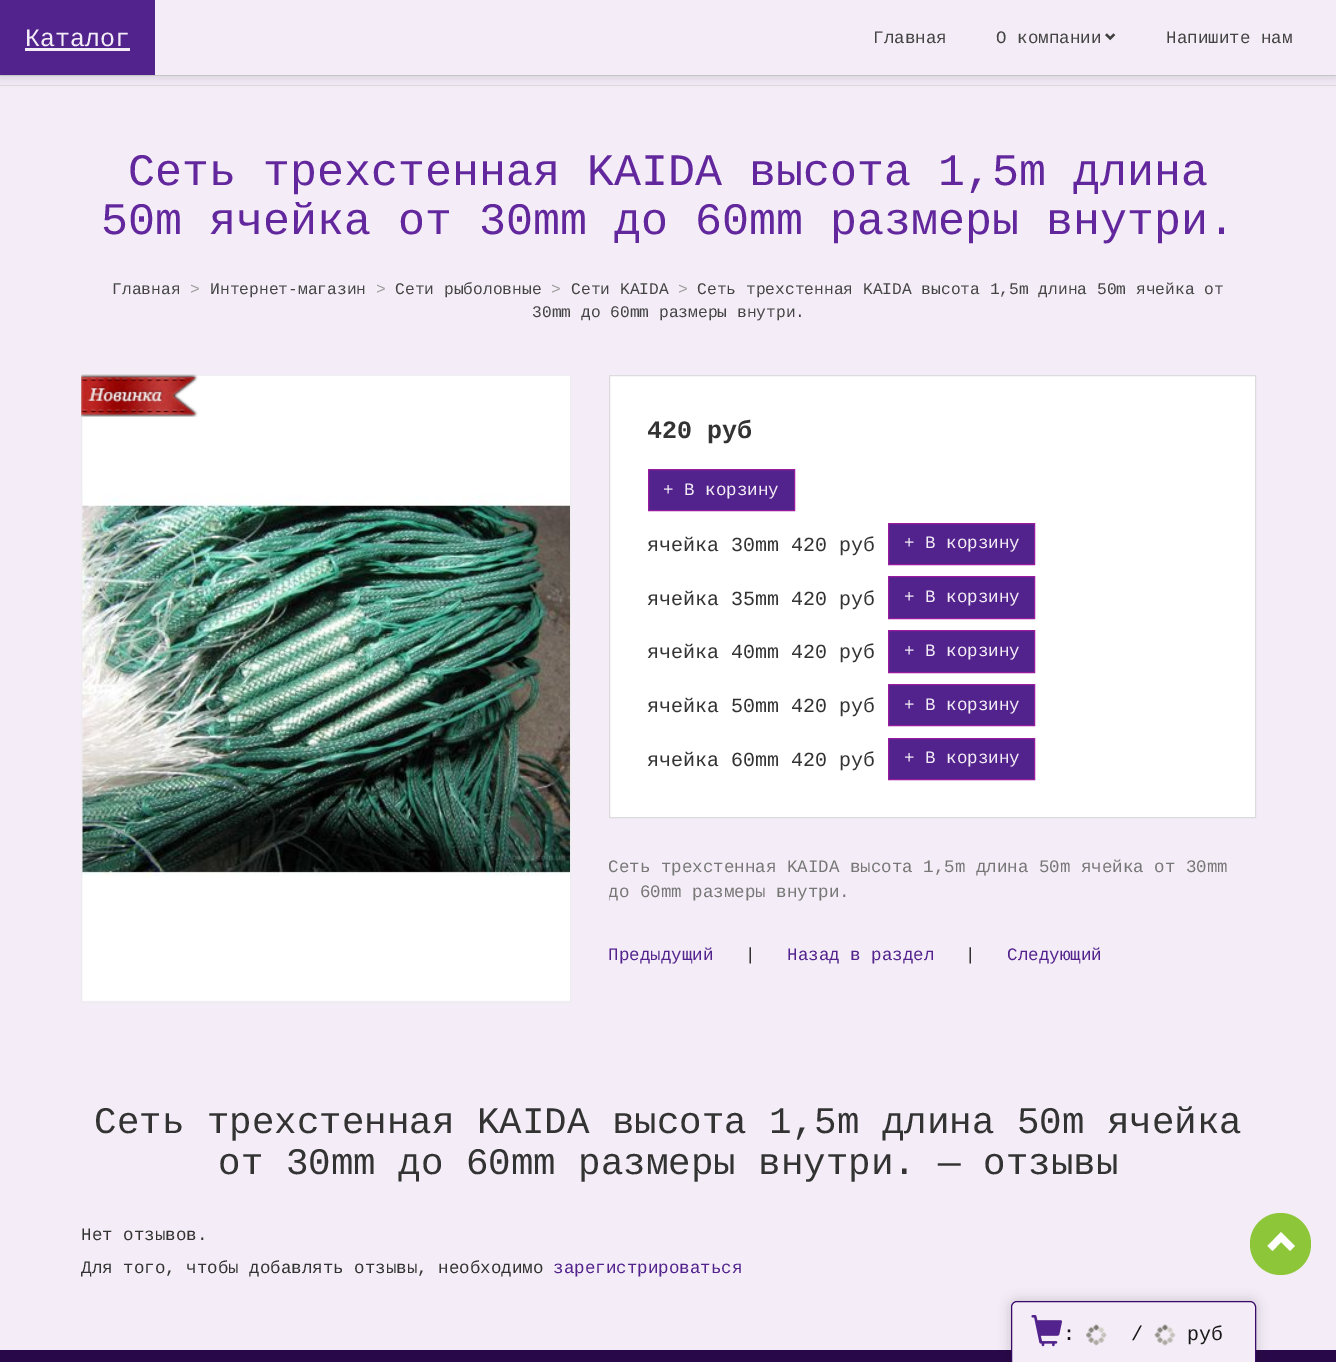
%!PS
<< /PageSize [1336 1362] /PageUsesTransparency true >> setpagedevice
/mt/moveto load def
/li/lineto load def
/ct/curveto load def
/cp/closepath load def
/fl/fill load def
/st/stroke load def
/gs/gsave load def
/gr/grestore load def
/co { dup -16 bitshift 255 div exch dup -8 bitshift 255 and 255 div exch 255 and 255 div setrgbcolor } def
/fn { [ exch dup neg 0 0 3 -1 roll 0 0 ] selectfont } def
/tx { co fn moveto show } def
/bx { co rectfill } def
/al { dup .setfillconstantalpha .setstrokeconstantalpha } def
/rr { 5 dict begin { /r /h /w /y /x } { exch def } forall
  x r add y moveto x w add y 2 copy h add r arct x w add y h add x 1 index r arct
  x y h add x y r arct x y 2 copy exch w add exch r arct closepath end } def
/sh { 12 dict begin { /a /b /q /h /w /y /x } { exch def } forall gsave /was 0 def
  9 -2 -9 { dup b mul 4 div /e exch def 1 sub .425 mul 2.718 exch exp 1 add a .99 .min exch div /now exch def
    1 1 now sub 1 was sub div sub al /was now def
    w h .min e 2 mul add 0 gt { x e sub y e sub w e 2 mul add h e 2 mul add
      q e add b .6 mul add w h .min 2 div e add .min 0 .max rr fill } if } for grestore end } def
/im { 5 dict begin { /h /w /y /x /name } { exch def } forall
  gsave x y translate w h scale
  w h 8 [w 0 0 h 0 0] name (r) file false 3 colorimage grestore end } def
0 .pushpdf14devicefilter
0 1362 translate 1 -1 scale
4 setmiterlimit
0 0 1336 1362 16#F4EDF7 bx
0 75 1336 1 16#DDDDDD bx
0 85 1336 1 16#DDDDDD bx
16#000000 co
0 0 1336 75 0 6 .2 sh
155 0 1181 75 16#F4EDF7 bx
0 0 155 75 16#52238C bx
25 48 105 3 16#F4EDF7 bx
(media/1.raw) 1105 33 11 8 im
16#ECECEC co
81.5 375.5 489 627 rectstroke
(media/3.raw) 82 375 488 626 im
(media/2.raw) 81 374 117 43 im
16#FFFFFF co
609.5 375.5 mt 1255.5 375.5 li 1255.5 817.5 li 609.5 817.5 li cp gs fl gr
16#DBDBDB co
st
16#52238C co
648.5 469.5 mt 794.5 469.5 li 794.5 510.5 li 648.5 510.5 li cp gs fl gr
16#991B9E co
st
16#52238C co
888.5 523.5 mt 1034.5 523.5 li 1034.5 564.5 li 888.5 564.5 li cp gs fl gr
16#991B9E co
st
16#52238C co
888.5 576.5 mt 1034.5 576.5 li 1034.5 618.5 li 888.5 618.5 li cp gs fl gr
16#991B9E co
st
16#52238C co
888.5 630.5 mt 1034.5 630.5 li 1034.5 672.5 li 888.5 672.5 li cp gs fl gr
16#991B9E co
st
16#52238C co
888.5 684.5 mt 1034.5 684.5 li 1034.5 725.5 li 888.5 725.5 li cp gs fl gr
16#991B9E co
st
16#52238C co
888.5 738.5 mt 1034.5 738.5 li 1034.5 779.5 li 888.5 779.5 li cp gs fl gr
16#991B9E co
st
0 1350 1336 12 16#29084A bx
16#8DC739 co
1250 1213 61 62 30.5 rr fl
16#FFFFFF co
1295 1246 mt 1290 1251 li 1281 1242 li 1272.5 1251 li 1267.5 1246 li 1281 1232 li cp fl
16#000000 co
1011 1301 245 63 6 6 .2 sh
16#F4EDF7 co
1017 1301.5 mt 1250 1301.5 li 1253 1301.5 1255.5 1304 1255.5 1307 ct 1255.5 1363.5 li 1011.5 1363.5 li 1011.5 1307 li 1011.5 1304 1014 1301.5 1017 1301.5 ct cp gs fl gr
16#390969 co
st
(media/4.raw) 1031 1315 31 32 im
(media/5.raw) 1086 1324 21 22 im
(media/6.raw) 1154 1324 22 22 im
(Каталог) 25 46 /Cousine-Regular 25 16#F4EDF7 tx
(Главная) 873 43 /Cousine-Regular 17.5 16#444444 tx
(О компании) 996 43 /Cousine-Regular 17.5 16#444444 tx
(Напишите нам) 1166 43 /Cousine-Regular 17.5 16#444444 tx
(Сеть трехстенная KAIDA высота 1,5m длина) 128 185 /Cousine-Regular 45 16#62279C tx
(50m ячейка от 30mm до 60mm размеры внутри.) 101 234 /Cousine-Regular 45 16#62279C tx
(Главная) 112 294 /Cousine-Regular 16.25 16#444444 tx
(>) 190 294 /Cousine-Regular 16.25 16#999999 tx
(Интернет-магазин) 210 294 /Cousine-Regular 16.25 16#444444 tx
(>) 376 294 /Cousine-Regular 16.25 16#999999 tx
(Сети рыболовные) 395 294 /Cousine-Regular 16.25 16#444444 tx
(>) 551 294 /Cousine-Regular 16.25 16#999999 tx
(Сети KAIDA) 571 294 /Cousine-Regular 16.25 16#444444 tx
(>) 678 294 /Cousine-Regular 16.25 16#999999 tx
(Сеть трехстенная KAIDA высота 1,5m длина 50m ячейка от) 697 294 /Cousine-Regular 16.25 16#444444 tx
(30mm до 60mm размеры внутри.) 532 317 /Cousine-Regular 16.25 16#444444 tx
gs
648 395 570 403 rectclip
(420) 647 438 /Cousine-Bold 25 16#333333 tx
gr
(руб) 707 438 /Cousine-Bold 25 16#333333 tx
(+ В корзину) 663 495 /Cousine-Regular 17.5 16#F4EDF7 tx
(ячейка 30mm 420 руб) 647 551 /Cousine-Regular 20 16#333333 tx
(+ В корзину) 904 548 /Cousine-Regular 17.5 16#F4EDF7 tx
(ячейка 35mm 420 руб) 647 605 /Cousine-Regular 20 16#333333 tx
(+ В корзину) 904 602 /Cousine-Regular 17.5 16#F4EDF7 tx
(ячейка 40mm 420 руб) 647 658 /Cousine-Regular 20 16#333333 tx
(+ В корзину) 904 656 /Cousine-Regular 17.5 16#F4EDF7 tx
(ячейка 50mm 420 руб) 647 712 /Cousine-Regular 20 16#333333 tx
(+ В корзину) 904 710 /Cousine-Regular 17.5 16#F4EDF7 tx
(ячейка 60mm 420 руб) 647 766 /Cousine-Regular 20 16#333333 tx
(+ В корзину) 904 763 /Cousine-Regular 17.5 16#F4EDF7 tx
(Сеть трехстенная KAIDA высота 1,5m длина 50m ячейка от 30mm) 608 872 /Cousine-Regular 17.5 16#777777 tx
gs
609 855 647 50 rectclip
(до 60mm размеры внутри.) 608 897 /Cousine-Regular 17.5 16#777777 tx
gr
(Предыдущий) 608 960 /Cousine-Regular 17.5 16#52238C tx
(|) 745 960 /Cousine-Regular 17.5 16#333333 tx
(Назад в раздел) 787 960 /Cousine-Regular 17.5 16#52238C tx
(|) 965 960 /Cousine-Regular 17.5 16#333333 tx
(Следующий) 1007 960 /Cousine-Regular 17.5 16#52238C tx
(Сеть трехстенная KAIDA высота 1,5m длина 50m ячейка) 94 1133 /Cousine-Regular 37.5 16#333333 tx
(от 30mm до 60mm размеры внутри. — отзывы) 218 1174 /Cousine-Regular 37.5 16#333333 tx
(Нет отзывов.) 81 1240 /Cousine-Regular 17.5 16#333333 tx
(Для того, чтобы добавлять отзывы, необходимо) 81 1273 /Cousine-Regular 17.5 16#333333 tx
(зарегистрироваться) 553 1273 /Cousine-Regular 17.5 16#52238C tx
(:) 1063 1340 /Cousine-Regular 20 16#191919 tx
(/) 1131 1340 /Cousine-Regular 20 16#191919 tx
(руб) 1187 1340 /Cousine-Regular 20 16#191919 tx
.poppdf14devicefilter showpage
